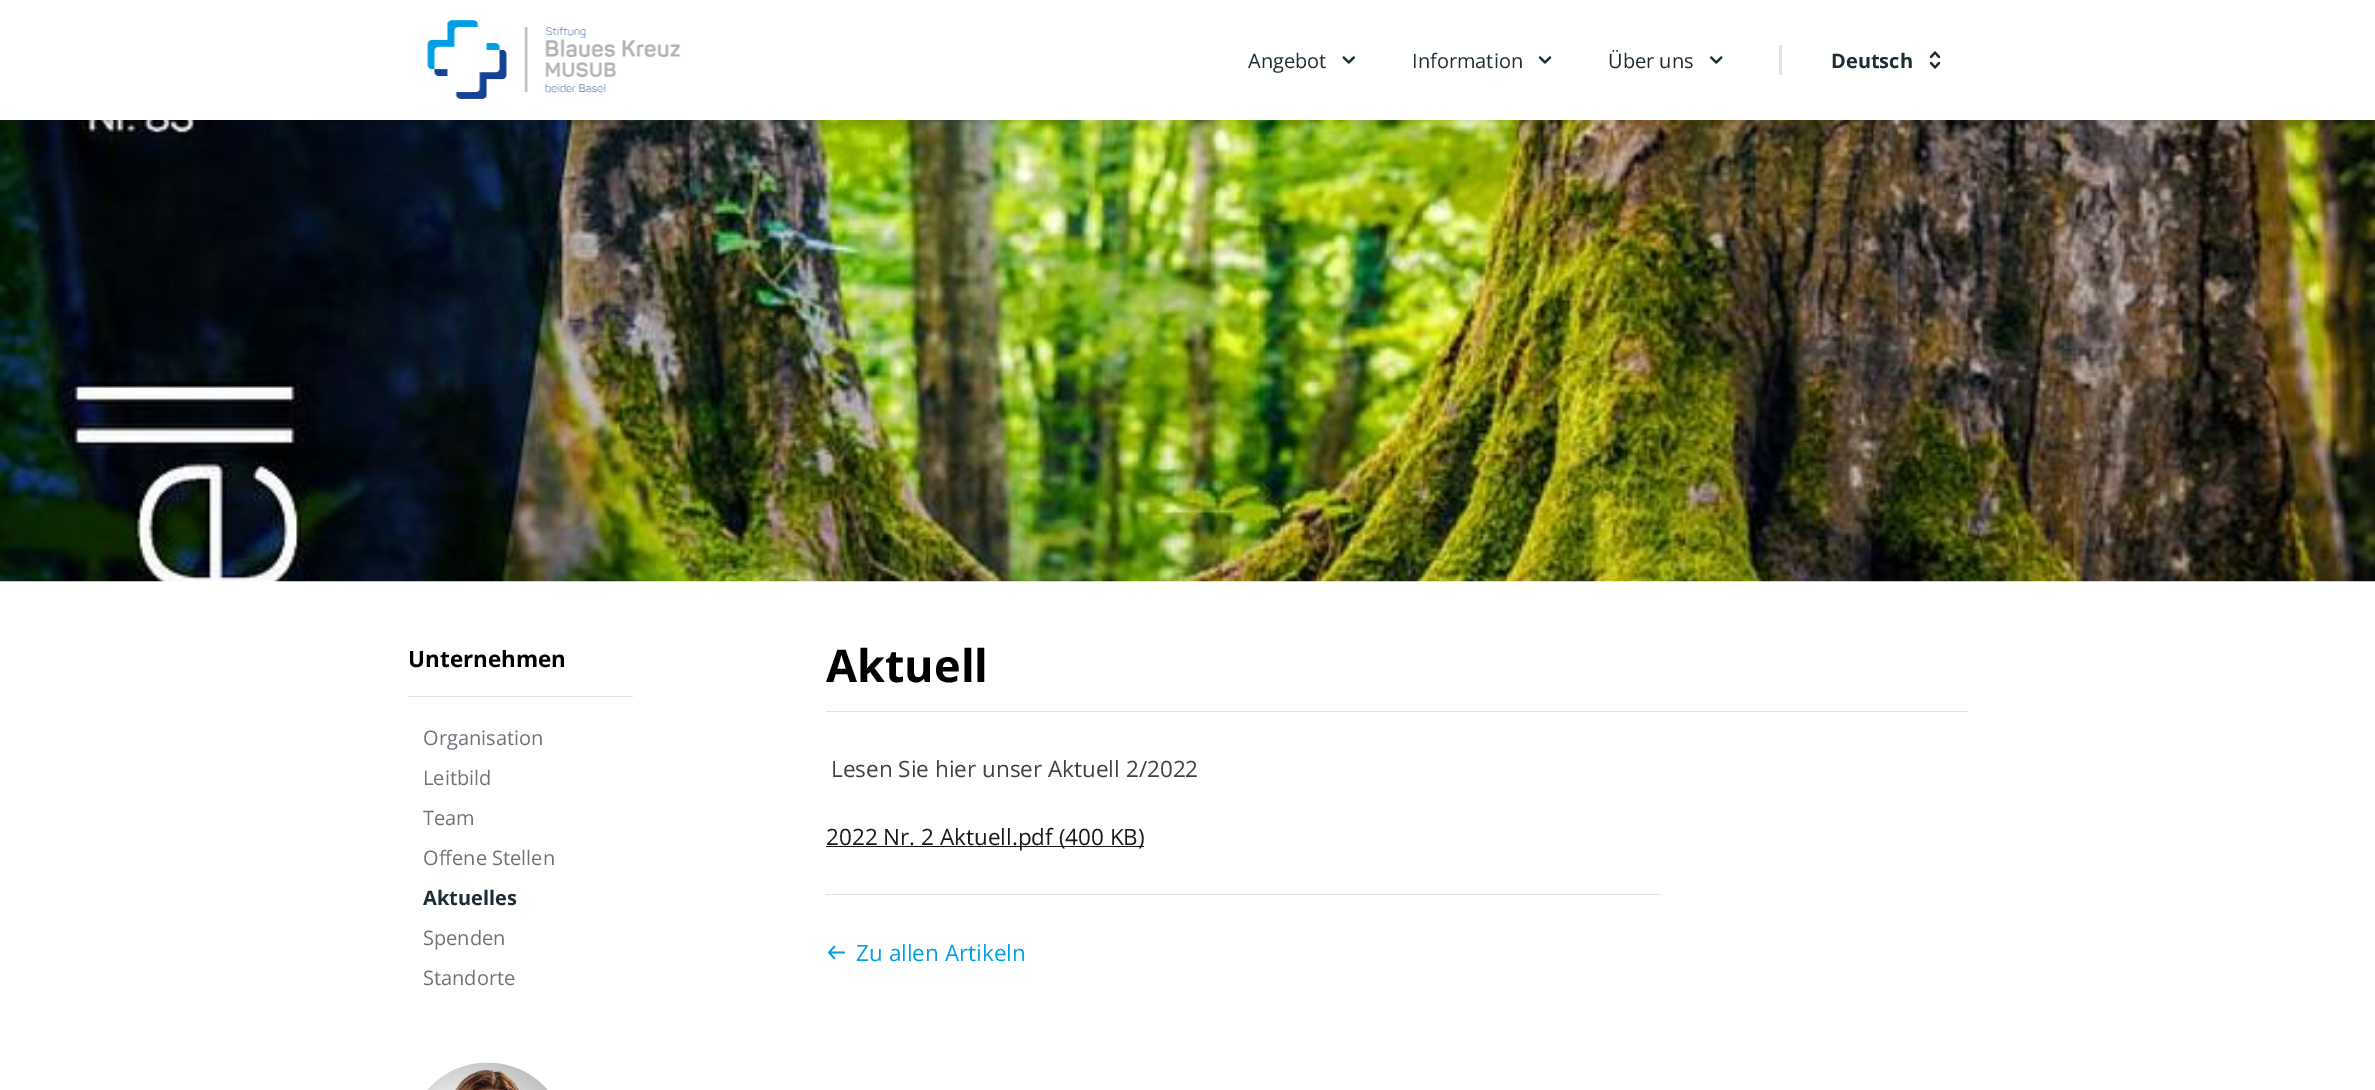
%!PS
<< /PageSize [2375 1090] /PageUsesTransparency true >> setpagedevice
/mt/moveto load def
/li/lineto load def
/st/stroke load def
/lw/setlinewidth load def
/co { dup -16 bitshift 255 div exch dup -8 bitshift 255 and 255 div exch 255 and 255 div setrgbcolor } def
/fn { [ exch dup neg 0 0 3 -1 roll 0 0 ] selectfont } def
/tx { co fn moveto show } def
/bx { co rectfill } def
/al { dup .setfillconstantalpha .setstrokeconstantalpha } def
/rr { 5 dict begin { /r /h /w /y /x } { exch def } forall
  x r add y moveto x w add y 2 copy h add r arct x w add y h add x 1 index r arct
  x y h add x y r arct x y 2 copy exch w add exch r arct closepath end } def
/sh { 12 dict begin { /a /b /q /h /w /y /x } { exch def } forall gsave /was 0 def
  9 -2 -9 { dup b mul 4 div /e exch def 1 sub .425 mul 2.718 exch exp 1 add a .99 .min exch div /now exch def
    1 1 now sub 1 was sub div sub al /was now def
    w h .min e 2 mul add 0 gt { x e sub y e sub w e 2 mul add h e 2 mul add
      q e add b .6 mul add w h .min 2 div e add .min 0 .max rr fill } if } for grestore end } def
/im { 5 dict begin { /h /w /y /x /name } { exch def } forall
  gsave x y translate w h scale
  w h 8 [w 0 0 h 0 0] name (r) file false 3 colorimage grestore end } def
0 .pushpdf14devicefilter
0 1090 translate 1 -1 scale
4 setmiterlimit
0 0 2375 1090 16#FFFFFF bx
(media/5.raw) 0 120 2375 462 im
16#000000 co
1 4 2373 117 0 2.5 .06 sh
1 6 2373 118 0 4 .1 sh
0 0 2375 120 16#FFFFFF bx
(media/1.raw) 427 20 254 79 im
(media/2.raw) 1342 56 13 8 im
(media/3.raw) 1538 56 14 8 im
(media/4.raw) 1710 56 13 8 im
1779 45 3 30 16#E4E4E7 bx
16#1D2D35 co
2.1 lw
1 setlinecap
1 setlinejoin
1931 57 mt 1935 52.5 li 1939 57 li 1939 63 mt 1935 67.5 li 1931 63 li st
408 696 225 1 16#E4E4E7 bx
(media/6.raw) 427 1062 121 28 im
826 711 1142 1 16#E4E4E7 bx
826 894 835 1 16#E4E4E7 bx
826 846 318 1 16#18181B bx
16#009FE3 co
1.7 lw
834.5 958.5 mt 829 952.5 li 829 952.5 mt 834.5 946.5 li 829 952.5 mt 844 952.5 li st
(Angebot) 1248 68 /OpenSans-Regular 20 16#1D2D35 tx
(Information) 1412 68 /OpenSans-Regular 20 16#1D2D35 tx
(Über uns) 1608 68 /OpenSans-Regular 20 16#1D2D35 tx
(Deutsch) 1831 68 /OpenSans-Bold 20 16#1D2D35 tx
(Unternehmen) 408 667 /OpenSans-Bold 22.5 16#000000 tx
(Organisation) 423 745 /OpenSans-Regular 20 16#71717A tx
(Leitbild) 423 785 /OpenSans-Regular 20 16#71717A tx
(Team) 423 825 /OpenSans-Regular 20 16#71717A tx
(Offene Stellen) 423 865 /OpenSans-Regular 20 16#71717A tx
(Aktuelles) 423 905 /OpenSans-Bold 20 16#1D2D35 tx
(Spenden) 423 945 /OpenSans-Regular 20 16#71717A tx
(Standorte) 423 985 /OpenSans-Regular 20 16#71717A tx
(Aktuell) 826 682 /OpenSans-Bold 45 16#000000 tx
(Lesen Sie hier unser Aktuell 2/2022) 831 777 /OpenSans-Regular 22.5 16#3F3F46 tx
(2022 Nr. 2 Aktuell.pdf \(400 KB\)) 826 845 /OpenSans-Regular 22.5 16#18181B tx
(Zu allen Artikeln) 856 961 /OpenSans-Regular 22.5 16#009FE3 tx
.poppdf14devicefilter showpage
